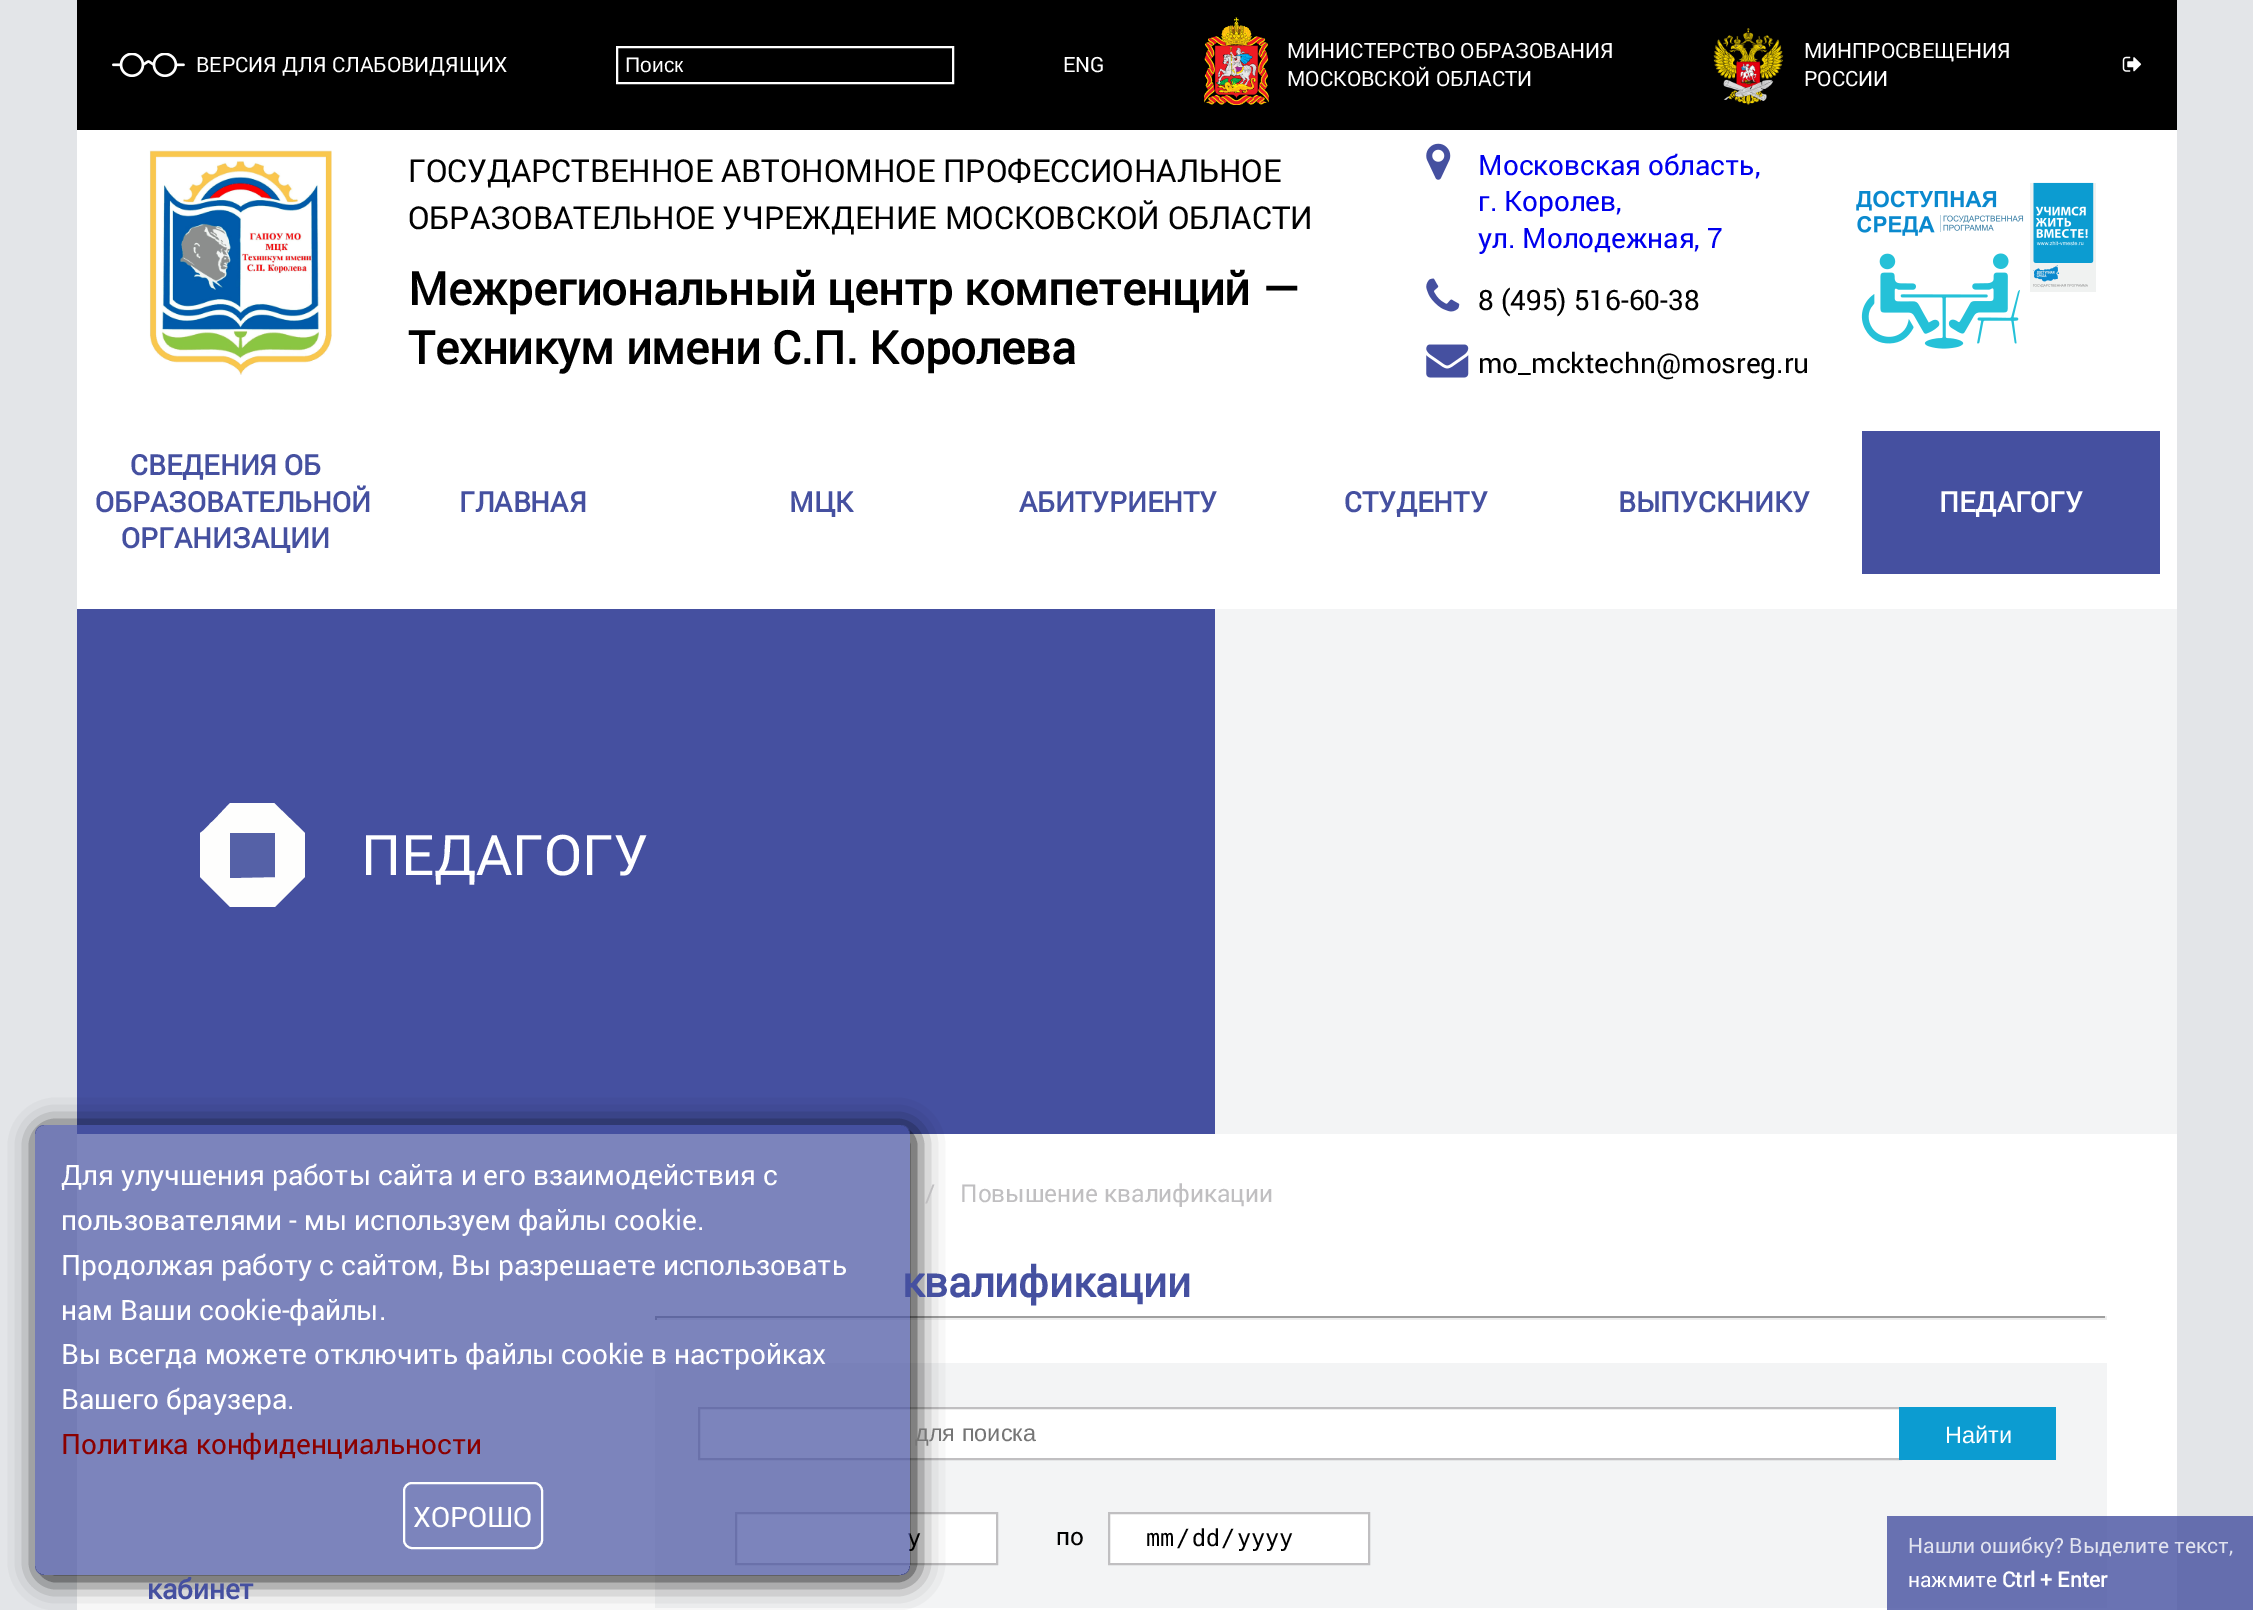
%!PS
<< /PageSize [2253 1610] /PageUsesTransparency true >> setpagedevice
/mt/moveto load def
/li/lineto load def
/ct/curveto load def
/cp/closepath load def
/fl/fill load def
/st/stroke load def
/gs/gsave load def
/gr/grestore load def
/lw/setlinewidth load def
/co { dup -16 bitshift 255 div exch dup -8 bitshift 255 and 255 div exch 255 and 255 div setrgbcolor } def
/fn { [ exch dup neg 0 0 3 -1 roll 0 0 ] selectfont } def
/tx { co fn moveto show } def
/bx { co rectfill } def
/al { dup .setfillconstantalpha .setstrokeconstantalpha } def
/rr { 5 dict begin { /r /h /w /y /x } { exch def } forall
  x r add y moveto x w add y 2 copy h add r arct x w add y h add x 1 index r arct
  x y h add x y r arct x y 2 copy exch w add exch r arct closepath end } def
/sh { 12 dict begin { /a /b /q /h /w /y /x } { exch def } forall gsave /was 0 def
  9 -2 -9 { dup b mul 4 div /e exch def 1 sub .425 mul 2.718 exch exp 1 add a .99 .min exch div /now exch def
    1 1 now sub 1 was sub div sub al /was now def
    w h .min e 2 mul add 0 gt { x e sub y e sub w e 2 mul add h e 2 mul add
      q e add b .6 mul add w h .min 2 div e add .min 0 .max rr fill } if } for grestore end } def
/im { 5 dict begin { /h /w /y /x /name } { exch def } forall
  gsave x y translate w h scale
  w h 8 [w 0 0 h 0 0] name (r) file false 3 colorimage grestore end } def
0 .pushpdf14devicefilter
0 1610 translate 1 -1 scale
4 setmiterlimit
0 0 2253 1610 16#E3E5E8 bx
2177 1516 76 94 16#656EAE bx
77 130 2100 479 16#FFFFFF bx
77 0 2100 130 16#000000 bx
(media/1.raw) 112 53 73 24 im
16#FFFFFF co
2 lw
617 47 336 36 rectstroke
(media/2.raw) 1204 17 65 88 im
(media/3.raw) 1713 28 71 77 im
(media/4.raw) 2122 56 20 16 im
(media/5.raw) 149 150 183 225 im
(media/6.raw) 1426 143 25 37 im
(media/7.raw) 1426 278 34 34 im
(media/8.raw) 1426 344 43 34 im
(media/9.raw) 1856 182 240 167 im
1862 431 298 143 16#4550A0 bx
77 1134 2100 476 16#FFFFFF bx
1887 1516 290 94 16#6A73B3 bx
1215 609 962 525 16#F3F4F5 bx
77 609 1138 525 16#4550A0 bx
16#FEFEFD co
200 833 mt 200 877 li 230 907 li 275 907 li 282 900 li 305 877 li 305 833 li 274 803 li 230 803 li 214 820 li 209 824 205 830 200 833 ct cp eofill
16#5561A7 co
230 871 mt 230 878 li 275 877 li 275 833 li 230 833 li cp eofill
655 1316 1452 2 16#9F9F9F bx
2105 1316 2 4 16#EEEEEE bx
655 1318 1452 2 16#EEEEEE bx
655 1316 2 4 16#9F9F9F bx
655 1363 1452 245 16#F3F4F5 bx
1887 1516 220 92 16#6871B1 bx
700 1409 1199 49 16#FFFFFF bx
16#C0BFC1 co
699 1408 1202 51 rectstroke
1899 1407 157 53 16#0C9CD1 bx
16#FFFFFF co
736 1513 mt 997 1513 li 997 1564 li 736 1564 li cp gs fl gr
16#C0BFC1 co
st
16#FFFFFF co
1109 1513 mt 1369 1513 li 1369 1564 li 1109 1564 li cp gs fl gr
16#C0BFC1 co
st
gs
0 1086 mt 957 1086 li 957 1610 li 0 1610 li cp 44 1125 mt 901 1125 li 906 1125 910 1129 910 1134 ct 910 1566 li 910 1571 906 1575 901 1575 ct 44 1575 li 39 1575 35 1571 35 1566 ct 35 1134 li 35 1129 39 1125 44 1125 ct cp eoclip newpath
16#000000 co
39 1129 875 450 9 14 1 sh
gr
(ВЕРСИЯ ДЛЯ СЛАБОВИДЯЩИХ) 196 72 /Roboto-Regular 21 16#FFFFFF tx
(Поиск) 625 72 /LiberationSans-Regular 21 16#FFFFFF tx
(ENG) 1063 72 /Roboto-Regular 21 16#FFFFFF tx
(МИНИСТЕРСТВО ОБРАЗОВАНИЯ) 1287 58 /Roboto-Regular 21 16#FFFFFF tx
(МОСКОВСКОЙ ОБЛАСТИ) 1287 86 /Roboto-Regular 21 16#FFFFFF tx
(МИНПРОСВЕЩЕНИЯ) 1804 58 /Roboto-Regular 21 16#FFFFFF tx
(РОССИИ) 1804 86 /Roboto-Regular 21 16#FFFFFF tx
(ГОСУДАРСТВЕННОЕ АВТОНОМНОЕ ПРОФЕССИОНАЛЬНОЕ) 408 182 /Roboto-Regular 31.5 16#000000 tx
(ОБРАЗОВАТЕЛЬНОЕ УЧРЕЖДЕНИЕ МОСКОВСКОЙ ОБЛАСТИ) 408 229 /Roboto-Regular 31.5 16#000000 tx
(Межрегиональный центр компетенций —) 408 305 /Roboto-Bold 45.5 16#000000 tx
(Техникум имени С.П. Королева) 408 364 /Roboto-Bold 45.5 16#000000 tx
(Московская область,) 1478 175 /Roboto-Regular 28 16#0000EE tx
(г. Королев,) 1478 211 /Roboto-Regular 28 16#0000EE tx
(ул. Молодежная, 7) 1478 248 /Roboto-Regular 28 16#0000EE tx
(8 \(495\) 516-60-38) 1478 310 /Roboto-Regular 28 16#000000 tx
(mo_mcktechn@mosreg.ru) 1478 373 /Roboto-Regular 28 16#000000 tx
(СВЕДЕНИЯ ОБ) 130 475 /Roboto-Bold 28 16#4550A0 tx
(ОБРАЗОВАТЕЛЬНОЙ) 95 512 /Roboto-Bold 28 16#4550A0 tx
(ОРГАНИЗАЦИИ) 121 548 /Roboto-Bold 28 16#4550A0 tx
(ГЛАВНАЯ) 459 512 /Roboto-Bold 28 16#4550A0 tx
(МЦК) 789 512 /Roboto-Bold 28 16#4550A0 tx
(АБИТУРИЕНТУ) 1019 512 /Roboto-Bold 28 16#4550A0 tx
(СТУДЕНТУ) 1344 512 /Roboto-Bold 28 16#4550A0 tx
(ВЫПУСКНИКУ) 1618 512 /Roboto-Bold 28 16#4550A0 tx
(ПЕДАГОГУ) 1939 512 /Roboto-Bold 28 16#FFFFFF tx
(ПЕДАГОГУ) 361 875 /Roboto-Regular 56 16#FFFFFF tx
(/) 925 1202 /Roboto-Regular 24.5 16#C0BFC1 tx
(Повышение квалификации) 960 1202 /Roboto-Regular 24.5 16#C0BFC1 tx
(квалификации) 902 1297 /Roboto-Bold 42 16#4550A0 tx
(для поиска) 915 1441 /LiberationSans-Regular 23.5 16#757575 tx
(Найти) 1945 1443 /LiberationSans-Regular 23.5 16#FFFFFF tx
(y) 907 1546 /DejaVuSansMono-Regular 23.5 16#000000 tx
(по) 1056 1545 /Roboto-Regular 24.5 16#000000 tx
(mm) 1146 1546 /DejaVuSansMono-Regular 23.5 16#000000 tx
(/) 1176 1546 /DejaVuSansMono-Regular 23.5 16#000000 tx
(dd) 1192 1546 /DejaVuSansMono-Regular 23.5 16#000000 tx
(/) 1221 1546 /DejaVuSansMono-Regular 23.5 16#000000 tx
(yyyy) 1237 1546 /DejaVuSansMono-Regular 23.5 16#000000 tx
(кабинет) 147 1599 /Roboto-Bold 28 16#4550A0 tx
(Нашли ошибку? Выделите текст,) 1908 1553 /Roboto-Regular 21 16#E1E3EF tx
(нажмите) 1908 1587 /Roboto-Regular 21 16#FFFFFF tx
(Ctrl + Enter) 2002 1587 /Roboto-Bold 21 16#FFFFFF tx
0.7 al
16#4550A0 co
35 1125 875 450 9 rr fl
1 al
(Для улучшения работы сайта и его взаимодействия с) 61 1185 /Roboto-Regular 28 16#FFFFFF tx
(пользователями - мы используем файлы cookie.) 61 1230 /Roboto-Regular 28 16#FFFFFF tx
(Продолжая работу с сайтом, Вы разрешаете использовать) 61 1275 /Roboto-Regular 28 16#FFFFFF tx
(нам Ваши cookie-файлы.) 61 1320 /Roboto-Regular 28 16#FFFFFF tx
(Вы всегда можете отключить файлы cookie в настройках) 61 1364 /Roboto-Regular 28 16#FFFFFF tx
(Вашего браузера.) 61 1409 /Roboto-Regular 28 16#FFFFFF tx
(Политика конфиденциальности) 61 1454 /Roboto-Regular 28 16#8B0000 tx
16#FFFFFF co
404 1483 138 65 8 rr st
(ХОРОШО) 413 1527 /Roboto-Regular 28 16#FFFFFF tx
.poppdf14devicefilter showpage
